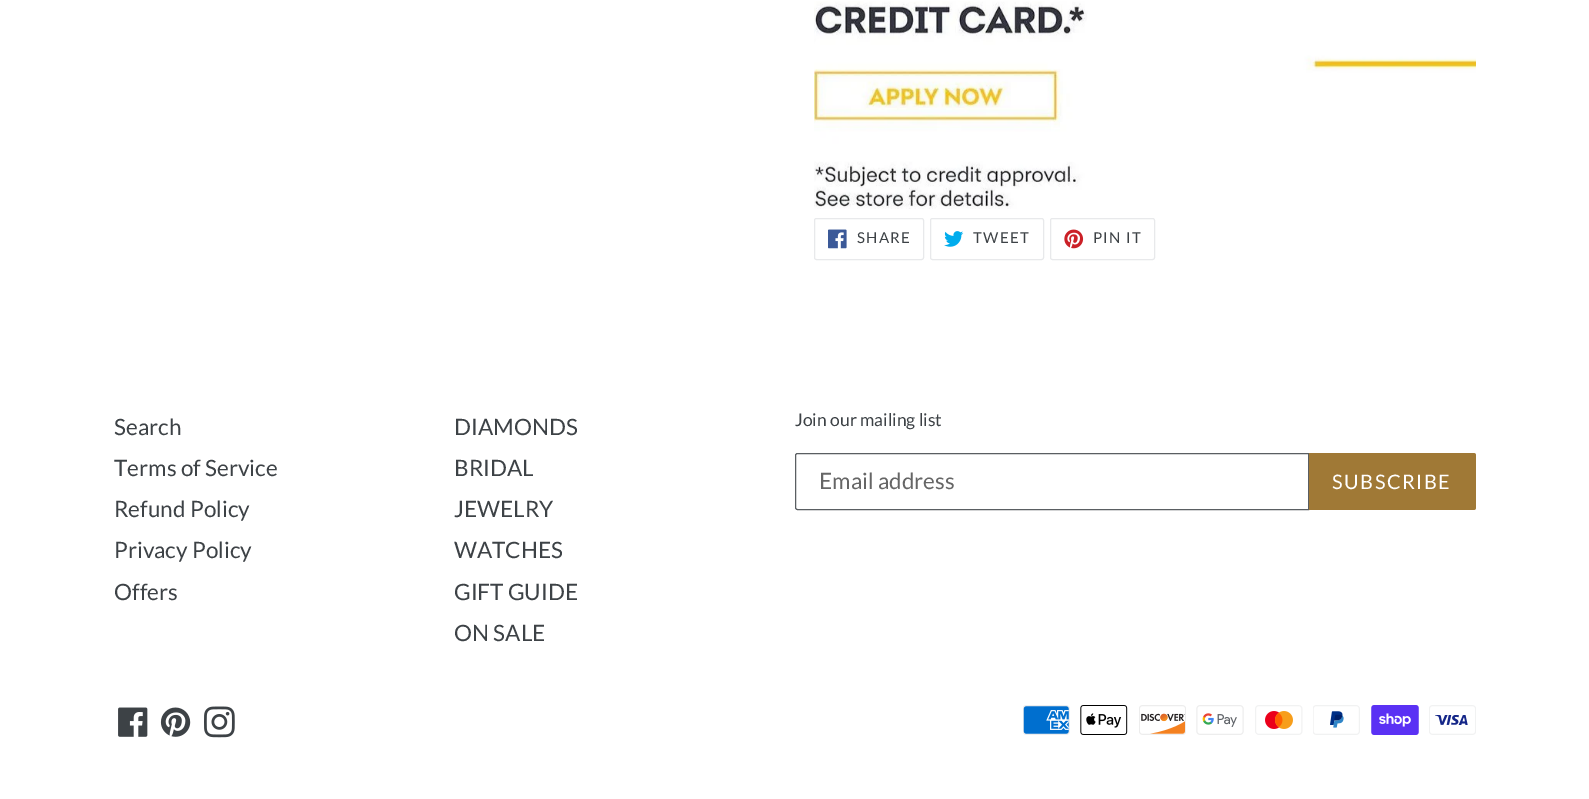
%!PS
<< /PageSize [1589 799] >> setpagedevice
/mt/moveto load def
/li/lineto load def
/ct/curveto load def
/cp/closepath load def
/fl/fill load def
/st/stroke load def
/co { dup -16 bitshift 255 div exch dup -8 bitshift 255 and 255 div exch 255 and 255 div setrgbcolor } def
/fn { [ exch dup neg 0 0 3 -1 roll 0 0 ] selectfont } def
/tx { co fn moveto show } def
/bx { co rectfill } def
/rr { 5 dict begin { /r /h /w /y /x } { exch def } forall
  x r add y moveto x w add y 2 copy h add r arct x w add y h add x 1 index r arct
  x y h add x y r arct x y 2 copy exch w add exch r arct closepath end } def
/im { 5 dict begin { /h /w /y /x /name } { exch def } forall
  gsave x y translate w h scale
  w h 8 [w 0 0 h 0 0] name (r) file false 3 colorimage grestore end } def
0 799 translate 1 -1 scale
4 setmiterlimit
0 0 1589 799 16#FFFFFF bx
(media/1.raw) 814 1 662 208 im
16#E8E9EB co
814.5 218.5 109 41 2 rr st
(media/2.raw) 828 229 19 20 im
930.5 218.5 113 41 2 rr st
(media/3.raw) 944 231 20 16 im
1050.5 218.5 104 41 2 rr st
(media/4.raw) 1064 229 20 20 im
16#5A5E62 co
797.5 453.5 mt 1308.5 453.5 li 1308.5 509.5 li 797.5 509.5 li 796.5 509.5 795.5 508.5 795.5 507.5 ct 795.5 455.5 li 795.5 454.5 796.5 453.5 797.5 453.5 ct cp st
16#A07936 co
1309 453 mt 1473.5 453 li 1475 453 1476 454 1476 455.5 ct 1476 507.5 li 1476 509 1475 510 1473.5 510 ct 1309 510 li cp fl
(media/5.raw) 118 707 30 30 im
(media/6.raw) 160 707 31 30 im
(media/7.raw) 204 706 31 32 im
(media/8.raw) 1023 705 47 30 im
(media/9.raw) 1080 705 48 30 im
(media/10.raw) 1139 705 47 30 im
(media/11.raw) 1196 705 48 30 im
(media/12.raw) 1255 705 48 30 im
(media/13.raw) 1313 705 47 30 im
(media/14.raw) 1371 705 48 30 im
(media/15.raw) 1429 705 47 30 im
/Lato-Regular 15 fn
16#3D4246 co
857 243 mt 1.25 0 (SHARE) ashow
973 243 mt 1.25 0 (TWEET) ashow
1093 243 mt 1.25 0 (PIN IT) ashow
(Search) 114 435 /Lato-Regular 22.5 16#3D4246 tx
(Terms of Service) 114 476 /Lato-Regular 22.5 16#3D4246 tx
(Refund Policy) 114 517 /Lato-Regular 22.5 16#3D4246 tx
(Privacy Policy) 114 558 /Lato-Regular 22.5 16#3D4246 tx
(Offers) 114 600 /Lato-Regular 22.5 16#3D4246 tx
(DIAMONDS) 454 435 /Lato-Regular 22.5 16#3D4246 tx
(BRIDAL) 454 476 /Lato-Regular 22.5 16#3D4246 tx
(JEWELRY) 454 517 /Lato-Regular 22.5 16#3D4246 tx
(WATCHES) 454 558 /Lato-Regular 22.5 16#3D4246 tx
(GIFT GUIDE) 454 600 /Lato-Regular 22.5 16#3D4246 tx
(ON SALE) 454 641 /Lato-Regular 22.5 16#3D4246 tx
(Join our mailing list) 795 426 /Lato-Regular 17.5 16#3D4246 tx
(Email address) 819 489 /Lato-Regular 22.5 16#666666 tx
/Lato-Regular 20 fn
16#FFFFFF co
1332 489 mt 1.5 0 (SUBSCRIBE) ashow
showpage
